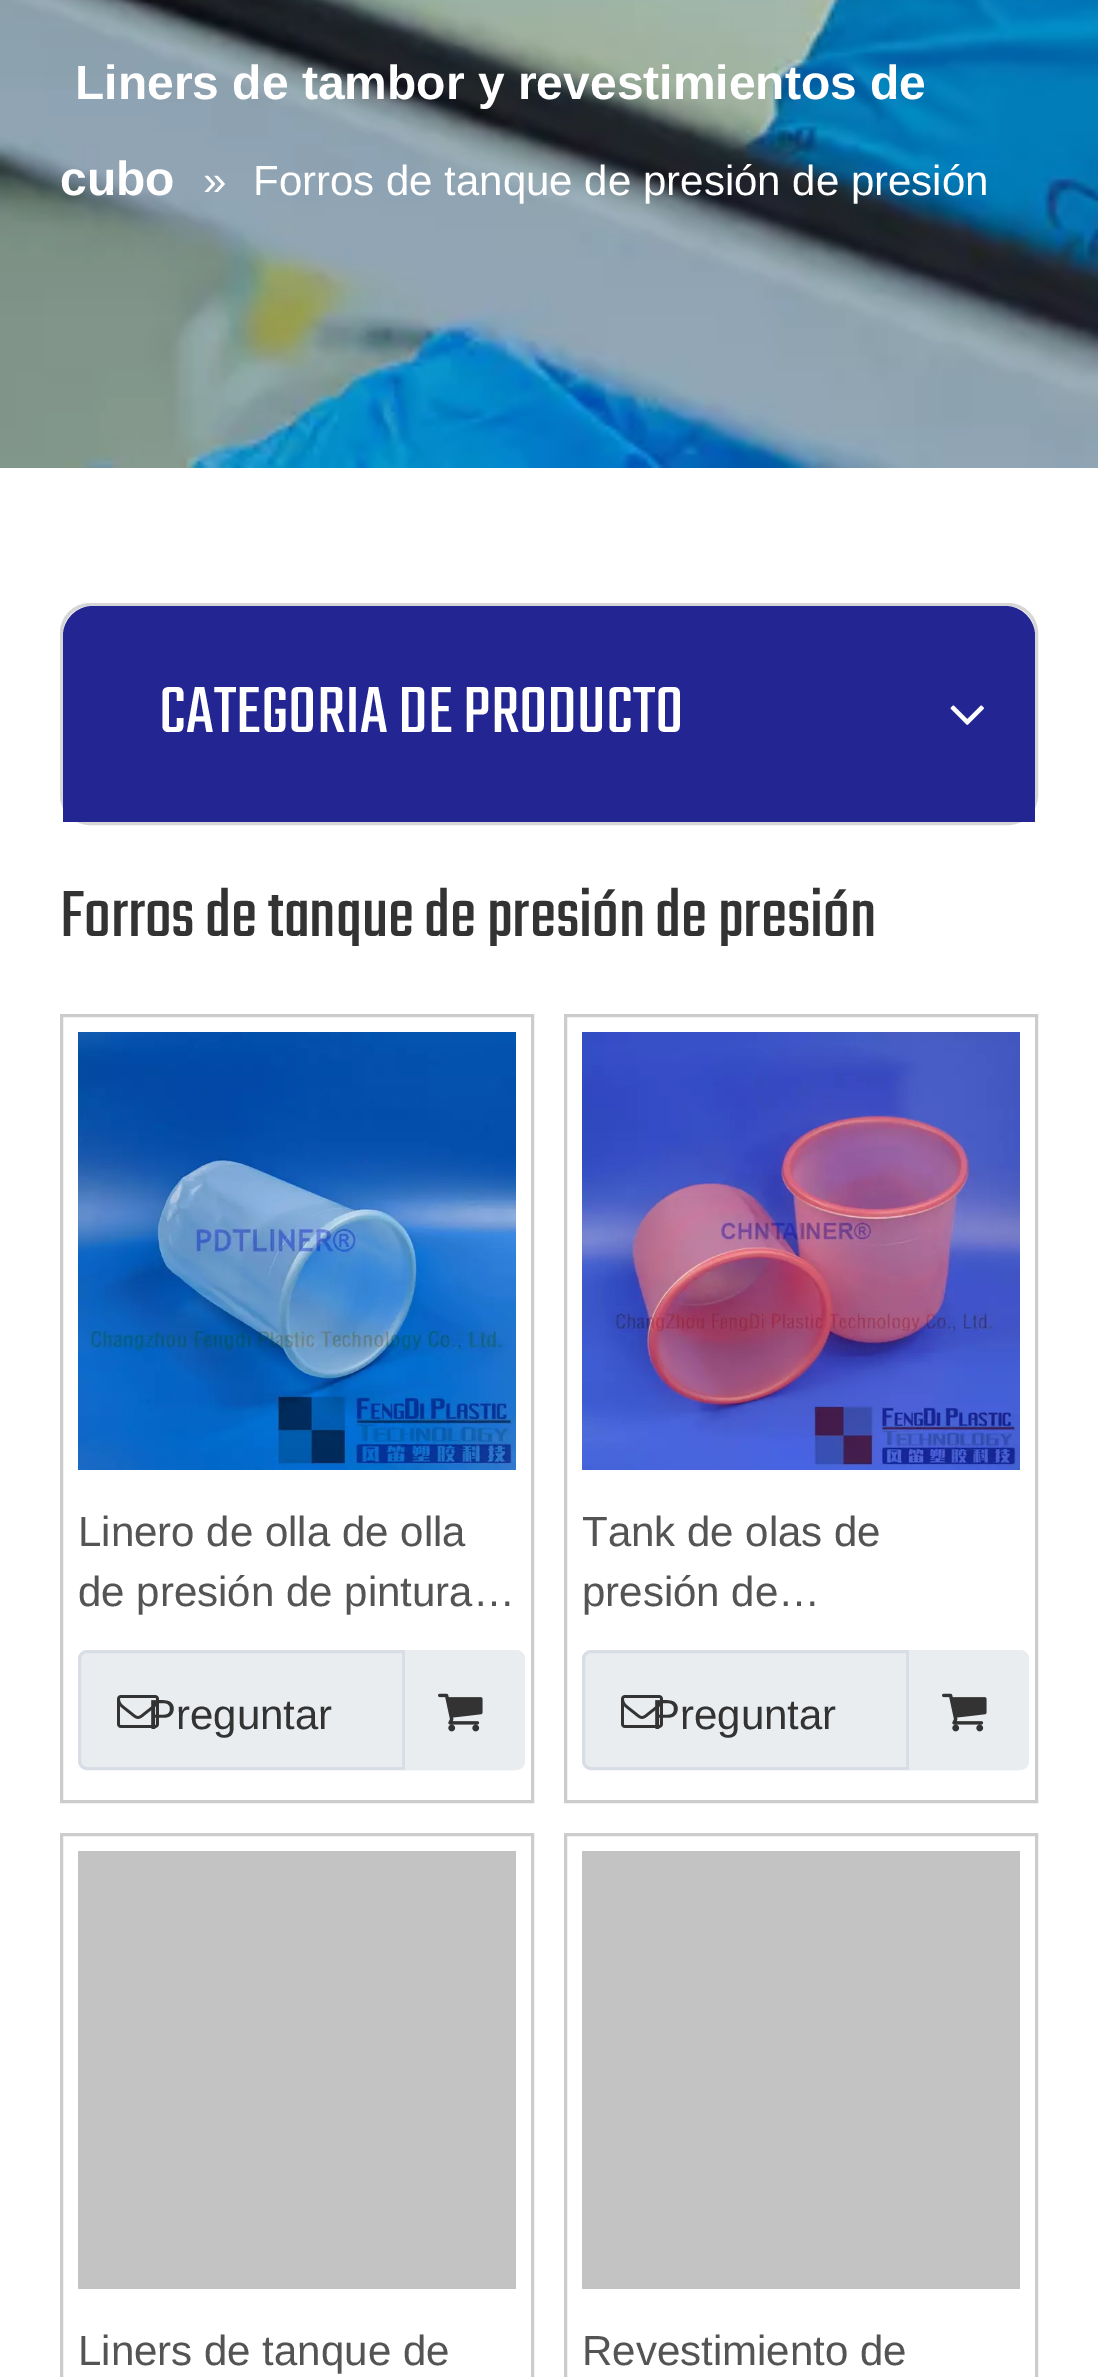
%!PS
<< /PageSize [1098 2377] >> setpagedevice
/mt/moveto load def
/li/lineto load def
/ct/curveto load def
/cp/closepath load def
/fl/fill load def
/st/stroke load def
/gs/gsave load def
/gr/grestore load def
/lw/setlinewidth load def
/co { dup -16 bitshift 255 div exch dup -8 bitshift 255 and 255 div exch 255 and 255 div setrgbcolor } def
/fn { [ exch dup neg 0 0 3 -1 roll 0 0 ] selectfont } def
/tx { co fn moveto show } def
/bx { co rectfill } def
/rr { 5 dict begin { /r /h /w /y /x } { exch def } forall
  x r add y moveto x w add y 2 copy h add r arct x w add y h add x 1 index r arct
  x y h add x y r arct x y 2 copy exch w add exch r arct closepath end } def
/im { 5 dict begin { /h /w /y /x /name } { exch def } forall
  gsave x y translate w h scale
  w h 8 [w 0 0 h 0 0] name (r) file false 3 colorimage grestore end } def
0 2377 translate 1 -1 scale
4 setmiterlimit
0 0 1098 2377 16#FFFFFF bx
(media/1.raw) 0 0 1098 468 im
16#D6D6D6 co
3 lw
61.5 604.5 975 219 28.5 rr st
16#232692 co
93 606 mt 1005 606 li 1021.5 606 1035 619.5 1035 636 ct 1035 822 li 63 822 li 63 636 li 63 619.5 76.5 606 93 606 ct cp fl
(media/2.raw) 950 705 34 20 im
16#CCCCCC co
61.5 1015.5 471 786 rectstroke
(media/3.raw) 78 1032 438 438 im
16#EAEDEF co
79.5 1651.5 441 117 7.5 rr gs fl gr
16#D8DDE6 co
st
16#EAEDEF co
402 1650 mt 516 1650 li 521 1650 525 1654 525 1659 ct 525 1761 li 525 1766 521 1770 516 1770 ct 402 1770 li cp fl
402 1650 3 120 16#D8DDE6 bx
(media/5.raw) 438 1693 45 39 im
16#CCCCCC co
565.5 1015.5 471 786 rectstroke
(media/6.raw) 582 1032 438 438 im
16#EAEDEF co
583.5 1651.5 441 117 7.5 rr gs fl gr
16#D8DDE6 co
st
16#EAEDEF co
906 1650 mt 1020 1650 li 1025 1650 1029 1654 1029 1659 ct 1029 1761 li 1029 1766 1025 1770 1020 1770 ct 906 1770 li cp fl
906 1650 3 120 16#D8DDE6 bx
(media/5.raw) 942 1693 45 39 im
16#CCCCCC co
61.5 1834.5 471 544 rectstroke
78 1851 438 438 16#C3C3C3 bx
16#CCCCCC co
565.5 1834.5 471 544 rectstroke
582 1851 438 438 16#C3C3C3 bx
(Liners de tambor y revestimientos de) 75 99 /LiberationSans-Bold 48 16#FFFFFF tx
(cubo) 60 195 /LiberationSans-Bold 48 16#FFFFFF tx
(») 203 195 /LiberationSans-Regular 42 16#FFFFFF tx
(Forros de tanque de presión de presión) 253 195 /LiberationSans-Regular 42 16#FFFFFF tx
(CATEGORIA DE PRODUCTO) 159 732 /Teko-Light 72 16#FFFFFF tx
(Forros de tanque de presión de presión) 60 936 /Teko-Light 72 16#333333 tx
(Linero de olla de olla) 78 1546 /LiberationSans-Regular 42 16#545454 tx
(de presión de pintura…) 78 1606 /LiberationSans-Regular 42 16#545454 tx
(Preguntar) 148 1729 /LiberationSans-Regular 42 16#333333 tx
(media/4.raw) 117 1695 42 33 im
(Tank de olas de) 582 1546 /LiberationSans-Regular 42 16#545454 tx
(presión de…) 582 1606 /LiberationSans-Regular 42 16#545454 tx
(Preguntar) 652 1729 /LiberationSans-Regular 42 16#333333 tx
(media/4.raw) 621 1695 42 33 im
(Liners de tanque de) 78 2365 /LiberationSans-Regular 42 16#545454 tx
(Revestimiento de) 582 2365 /LiberationSans-Regular 42 16#545454 tx
showpage
